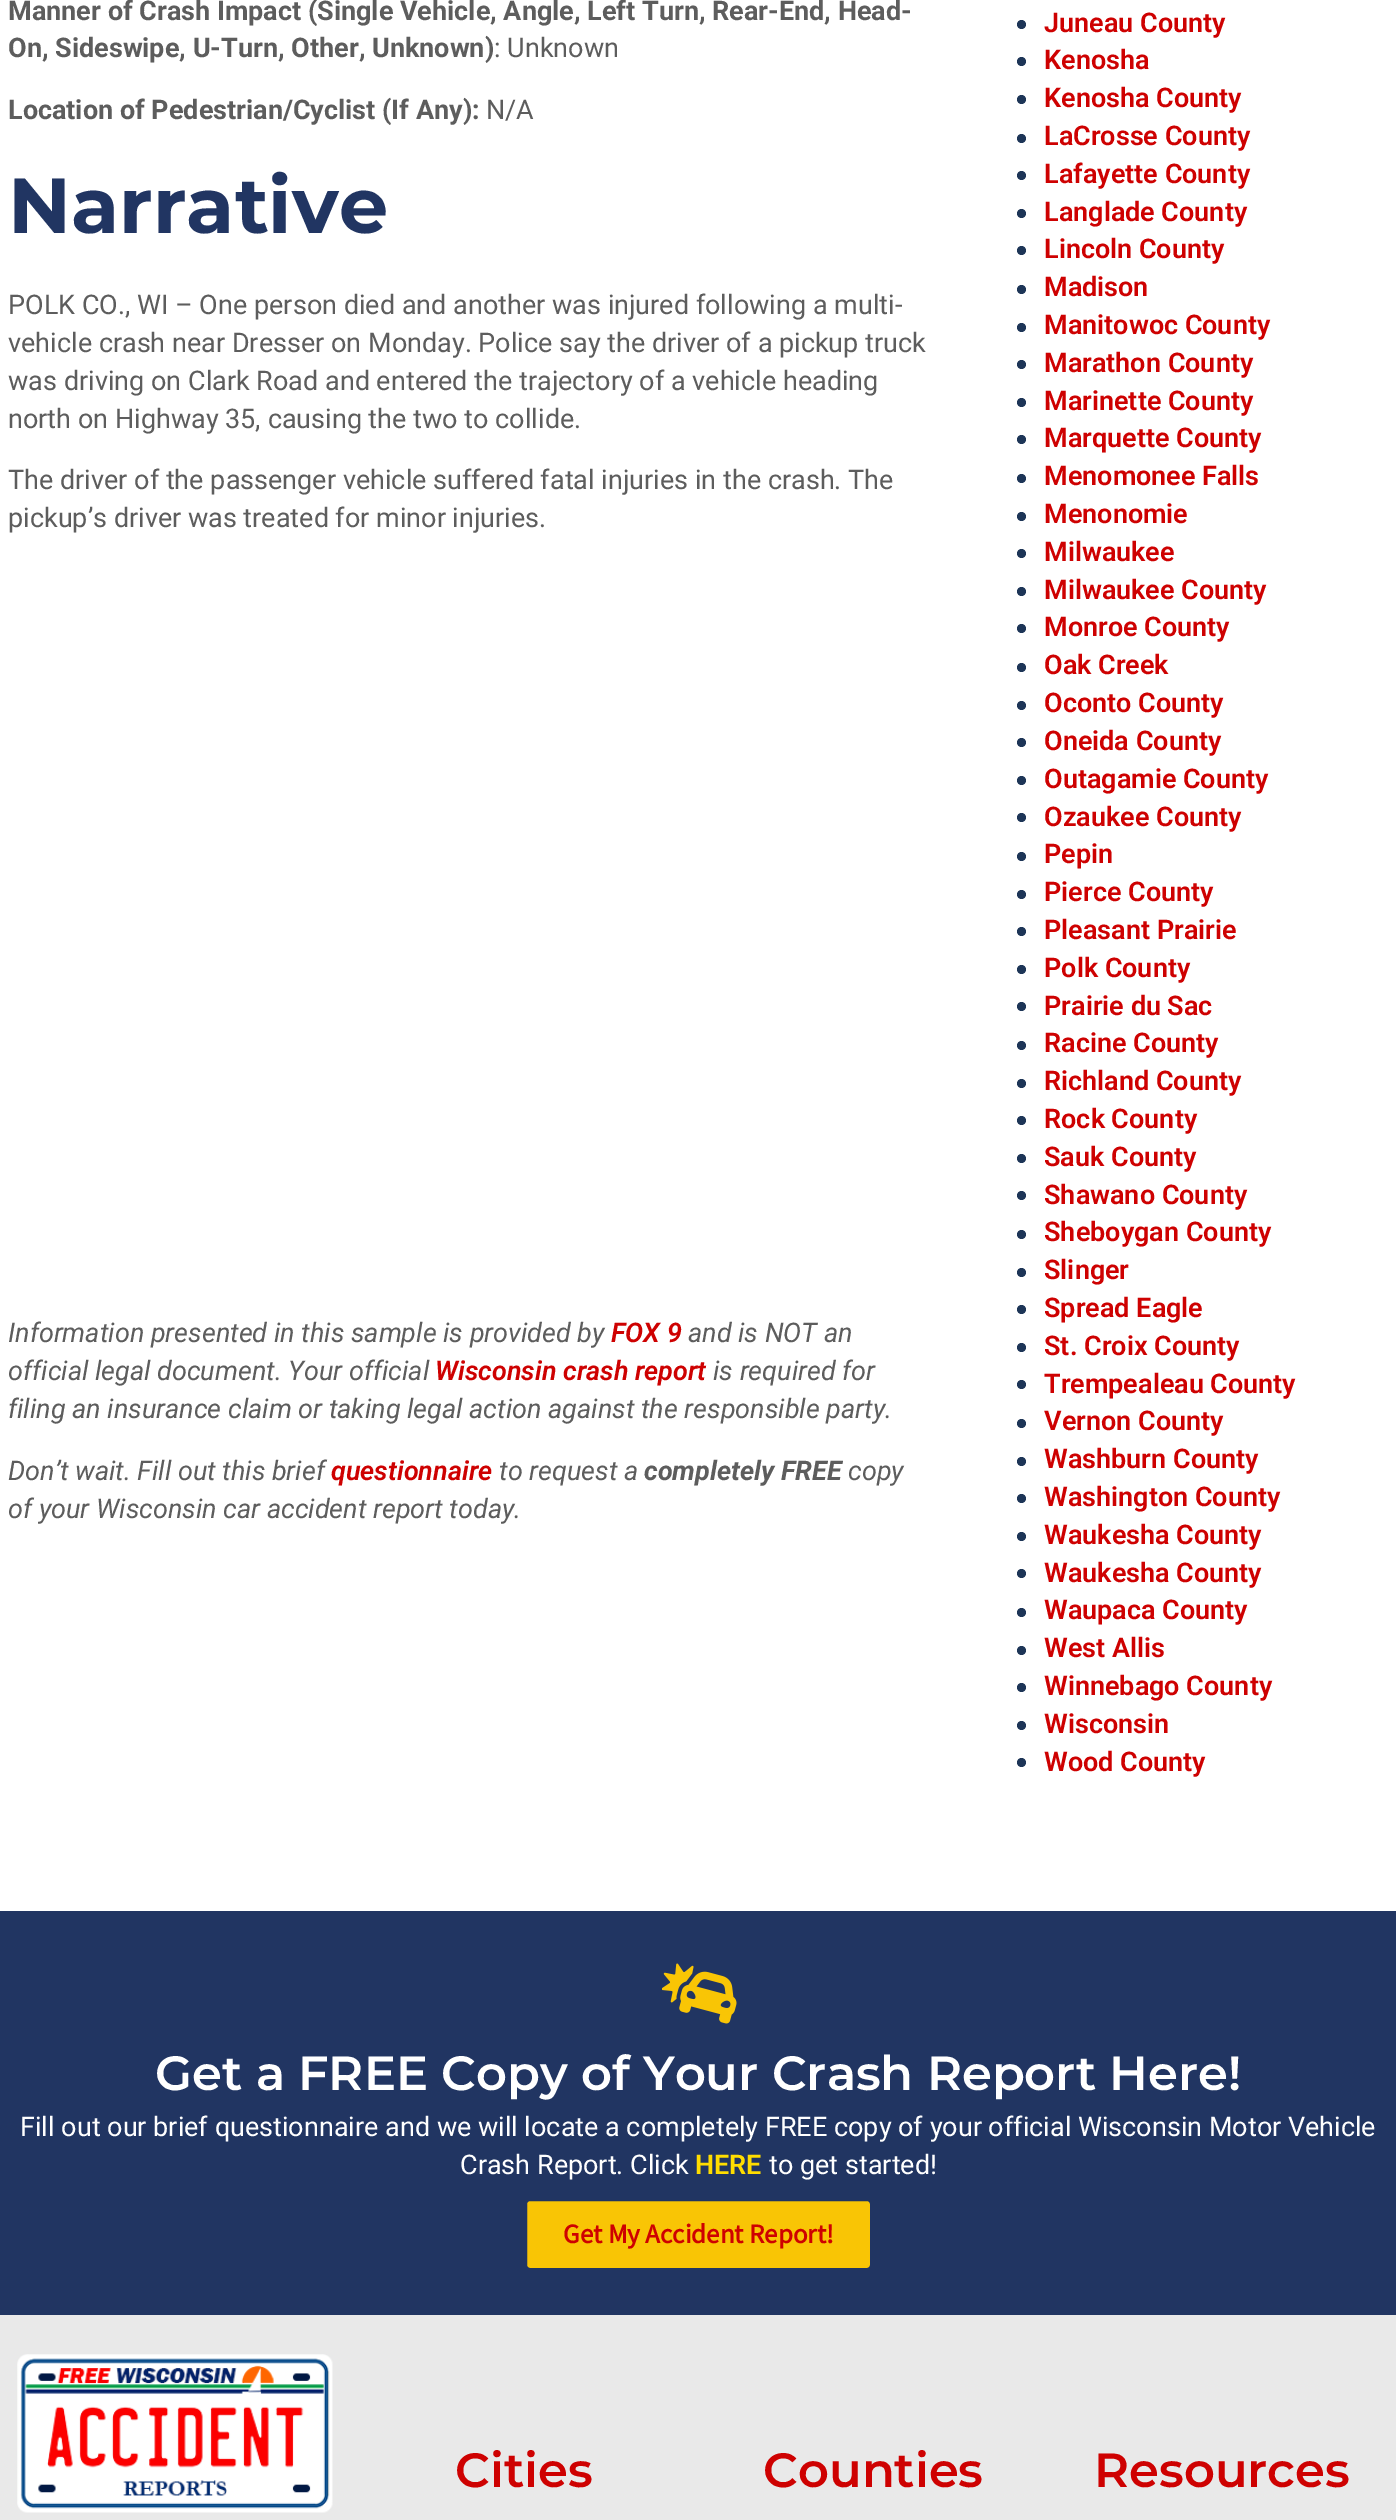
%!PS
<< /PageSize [1396 2520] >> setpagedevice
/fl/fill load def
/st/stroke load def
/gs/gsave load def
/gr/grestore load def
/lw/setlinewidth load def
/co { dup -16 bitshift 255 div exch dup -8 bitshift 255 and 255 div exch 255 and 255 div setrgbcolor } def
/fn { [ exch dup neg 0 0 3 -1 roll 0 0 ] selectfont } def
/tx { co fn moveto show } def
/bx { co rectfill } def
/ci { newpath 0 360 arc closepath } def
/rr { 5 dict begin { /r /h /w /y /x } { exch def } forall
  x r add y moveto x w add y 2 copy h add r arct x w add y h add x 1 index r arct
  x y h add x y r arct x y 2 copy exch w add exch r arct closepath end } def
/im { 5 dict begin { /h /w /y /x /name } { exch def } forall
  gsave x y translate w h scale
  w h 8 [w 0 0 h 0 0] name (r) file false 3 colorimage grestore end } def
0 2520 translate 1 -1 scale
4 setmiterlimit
0 0 1396 2520 16#FFFFFF bx
16#1D3557 co
1021.5 24.5 4.5 ci fl
1021.5 61.5 4.5 ci fl
1021.5 99.5 4.5 ci fl
1021.5 138.5 4.5 ci fl
1021.5 175.5 4.5 ci fl
1021.5 213.5 4.5 ci fl
1021.5 250.5 4.5 ci fl
1021.5 289.5 4.5 ci fl
1021.5 327.5 4.5 ci fl
1021.5 364.5 4.5 ci fl
1021.5 402.5 4.5 ci fl
1021.5 439.5 4.5 ci fl
1021.5 478.5 4.5 ci fl
1021.5 516.5 4.5 ci fl
1021.5 553.5 4.5 ci fl
1021.5 591.5 4.5 ci fl
1021.5 628.5 4.5 ci fl
1021.5 667.5 4.5 ci fl
1021.5 705.5 4.5 ci fl
1021.5 742.5 4.5 ci fl
1021.5 780.5 4.5 ci fl
1021.5 817.5 4.5 ci fl
1021.5 856.5 4.5 ci fl
1021.5 894.5 4.5 ci fl
1021.5 931.5 4.5 ci fl
1021.5 969.5 4.5 ci fl
1021.5 1006.5 4.5 ci fl
1021.5 1045.5 4.5 ci fl
1021.5 1083.5 4.5 ci fl
1021.5 1120.5 4.5 ci fl
1021.5 1158.5 4.5 ci fl
1021.5 1195.5 4.5 ci fl
1021.5 1234.5 4.5 ci fl
1021.5 1272.5 4.5 ci fl
1021.5 1309.5 4.5 ci fl
1021.5 1347.5 4.5 ci fl
1021.5 1384.5 4.5 ci fl
1021.5 1423.5 4.5 ci fl
1021.5 1461.5 4.5 ci fl
1021.5 1498.5 4.5 ci fl
1021.5 1536.5 4.5 ci fl
1021.5 1573.5 4.5 ci fl
1021.5 1612.5 4.5 ci fl
1021.5 1650.5 4.5 ci fl
1021.5 1687.5 4.5 ci fl
1021.5 1725.5 4.5 ci fl
1021.5 1762.5 4.5 ci fl
0 1911 1396 404 16#213562 bx
(media/1.raw) 662 1963 75 61 im
16#F9C505 co
526 2200 345 69 4 rr gs fl gr
16#213562 co
2 lw
st
0 2315 1396 205 16#E9E9E9 bx
(media/2.raw) 17 2354 316 159 im
(Manner of Crash Impact \(Single Vehicle, Angle, Left Turn, Rear-End, Head-) 8 20 /Roboto-Bold 27 16#5D5D5D tx
(On, Sideswipe, U-Turn, Other, Unknown\)) 8 57 /Roboto-Bold 27 16#5D5D5D tx
(: Unknown) 494 57 /Roboto-Regular 27 16#5D5D5D tx
(Location of Pedestrian/Cyclist \(If Any\):) 8 119 /Roboto-Bold 27 16#5D5D5D tx
(N/A) 486 119 /Roboto-Regular 27 16#5D5D5D tx
(Narrative) 8 233 /Montserrat-Bold 78 16#213562 tx
(POLK CO., WI – One person died and another was injured following a multi-) 8 314 /Roboto-Regular 27 16#5D5D5D tx
(vehicle crash near Dresser on Monday. Police say the driver of a pickup truck) 8 352 /Roboto-Regular 27 16#5D5D5D tx
(was driving on Clark Road and entered the trajectory of a vehicle heading) 8 390 /Roboto-Regular 27 16#5D5D5D tx
(north on Highway 35, causing the two to collide.) 8 428 /Roboto-Regular 27 16#5D5D5D tx
(The driver of the passenger vehicle suffered fatal injuries in the crash. The) 8 489 /Roboto-Regular 27 16#5D5D5D tx
(pickup’s driver was treated for minor injuries.) 8 527 /Roboto-Regular 27 16#5D5D5D tx
(Information presented in this sample is provided by) 8 1342 /Roboto-Italic 27 16#5D5D5D tx
(FOX 9) 611 1342 /Roboto-SemiBoldItalic 27 16#CE0101 tx
(and is NOT an) 688 1342 /Roboto-Italic 27 16#5D5D5D tx
(official legal document. Your official) 8 1380 /Roboto-Italic 27 16#5D5D5D tx
(Wisconsin crash report) 435 1380 /Roboto-SemiBoldItalic 27 16#CE0101 tx
(is required for) 713 1380 /Roboto-Italic 27 16#5D5D5D tx
(filing an insurance claim or taking legal action against the responsible party.) 8 1418 /Roboto-Italic 27 16#5D5D5D tx
(Don’t wait. Fill out this brief) 8 1480 /Roboto-Italic 27 16#5D5D5D tx
(questionnaire) 331 1480 /Roboto-SemiBoldItalic 27 16#CE0101 tx
(to request a) 499 1480 /Roboto-Italic 27 16#5D5D5D tx
(completely FREE) 644 1480 /Roboto-BoldItalic 27 16#5D5D5D tx
(copy) 848 1480 /Roboto-Italic 27 16#5D5D5D tx
(of your Wisconsin car accident report today.) 8 1518 /Roboto-Italic 27 16#5D5D5D tx
(Juneau County) 1044 32 /Roboto-SemiBold 27 16#CE0101 tx
(Kenosha) 1044 69 /Roboto-SemiBold 27 16#CE0101 tx
(Kenosha County) 1044 107 /Roboto-SemiBold 27 16#CE0101 tx
(LaCrosse County) 1044 145 /Roboto-SemiBold 27 16#CE0101 tx
(Lafayette County) 1044 183 /Roboto-SemiBold 27 16#CE0101 tx
(Langlade County) 1044 221 /Roboto-SemiBold 27 16#CE0101 tx
(Lincoln County) 1044 258 /Roboto-SemiBold 27 16#CE0101 tx
(Madison) 1044 296 /Roboto-SemiBold 27 16#CE0101 tx
(Manitowoc County) 1044 334 /Roboto-SemiBold 27 16#CE0101 tx
(Marathon County) 1044 372 /Roboto-SemiBold 27 16#CE0101 tx
(Marinette County) 1044 410 /Roboto-SemiBold 27 16#CE0101 tx
(Marquette County) 1044 447 /Roboto-SemiBold 27 16#CE0101 tx
(Menomonee Falls) 1044 485 /Roboto-SemiBold 27 16#CE0101 tx
(Menonomie) 1044 523 /Roboto-SemiBold 27 16#CE0101 tx
(Milwaukee) 1044 561 /Roboto-SemiBold 27 16#CE0101 tx
(Milwaukee County) 1044 599 /Roboto-SemiBold 27 16#CE0101 tx
(Monroe County) 1044 636 /Roboto-SemiBold 27 16#CE0101 tx
(Oak Creek) 1044 674 /Roboto-SemiBold 27 16#CE0101 tx
(Oconto County) 1044 712 /Roboto-SemiBold 27 16#CE0101 tx
(Oneida County) 1044 750 /Roboto-SemiBold 27 16#CE0101 tx
(Outagamie County) 1044 788 /Roboto-SemiBold 27 16#CE0101 tx
(Ozaukee County) 1044 826 /Roboto-SemiBold 27 16#CE0101 tx
(Pepin) 1044 863 /Roboto-SemiBold 27 16#CE0101 tx
(Pierce County) 1044 901 /Roboto-SemiBold 27 16#CE0101 tx
(Pleasant Prairie) 1044 939 /Roboto-SemiBold 27 16#CE0101 tx
(Polk County) 1044 977 /Roboto-SemiBold 27 16#CE0101 tx
(Prairie du Sac) 1044 1015 /Roboto-SemiBold 27 16#CE0101 tx
(Racine County) 1044 1052 /Roboto-SemiBold 27 16#CE0101 tx
(Richland County) 1044 1090 /Roboto-SemiBold 27 16#CE0101 tx
(Rock County) 1044 1128 /Roboto-SemiBold 27 16#CE0101 tx
(Sauk County) 1044 1166 /Roboto-SemiBold 27 16#CE0101 tx
(Shawano County) 1044 1204 /Roboto-SemiBold 27 16#CE0101 tx
(Sheboygan County) 1044 1241 /Roboto-SemiBold 27 16#CE0101 tx
(Slinger) 1044 1279 /Roboto-SemiBold 27 16#CE0101 tx
(Spread Eagle) 1044 1317 /Roboto-SemiBold 27 16#CE0101 tx
(St. Croix County) 1044 1355 /Roboto-SemiBold 27 16#CE0101 tx
(Trempealeau County) 1044 1393 /Roboto-SemiBold 27 16#CE0101 tx
(Vernon County) 1044 1430 /Roboto-SemiBold 27 16#CE0101 tx
(Washburn County) 1044 1468 /Roboto-SemiBold 27 16#CE0101 tx
(Washington County) 1044 1506 /Roboto-SemiBold 27 16#CE0101 tx
(Waukesha County) 1044 1544 /Roboto-SemiBold 27 16#CE0101 tx
(Waukesha County) 1044 1582 /Roboto-SemiBold 27 16#CE0101 tx
(Waupaca County) 1044 1619 /Roboto-SemiBold 27 16#CE0101 tx
(West Allis) 1044 1657 /Roboto-SemiBold 27 16#CE0101 tx
(Winnebago County) 1044 1695 /Roboto-SemiBold 27 16#CE0101 tx
(Wisconsin) 1044 1733 /Roboto-SemiBold 27 16#CE0101 tx
(Wood County) 1044 1771 /Roboto-SemiBold 27 16#CE0101 tx
(Get a FREE Copy of Your Crash Report Here!) 155 2090 /Montserrat-SemiBold 48 16#FFFFFF tx
(Fill out our brief questionnaire and we will locate a completely FREE copy of your official Wisconsin Motor Vehicle) 20 2136 /Roboto-Regular 27 16#FFFFFF tx
(Crash Report. Click) 460 2174 /Roboto-Regular 27 16#FFFFFF tx
(HERE) 695 2174 /Roboto-SemiBold 27 16#FFDD00 tx
(to get started!) 769 2174 /Roboto-Regular 27 16#FFFFFF tx
(Get My Accident Report!) 563 2243 /SourceSansPro-Bold 27 16#CE0101 tx
(Cities) 455 2487 /Montserrat-SemiBold 48 16#CE0101 tx
(Counties) 763 2487 /Montserrat-SemiBold 48 16#CE0101 tx
(Resources) 1094 2487 /Montserrat-SemiBold 48 16#CE0101 tx
showpage
